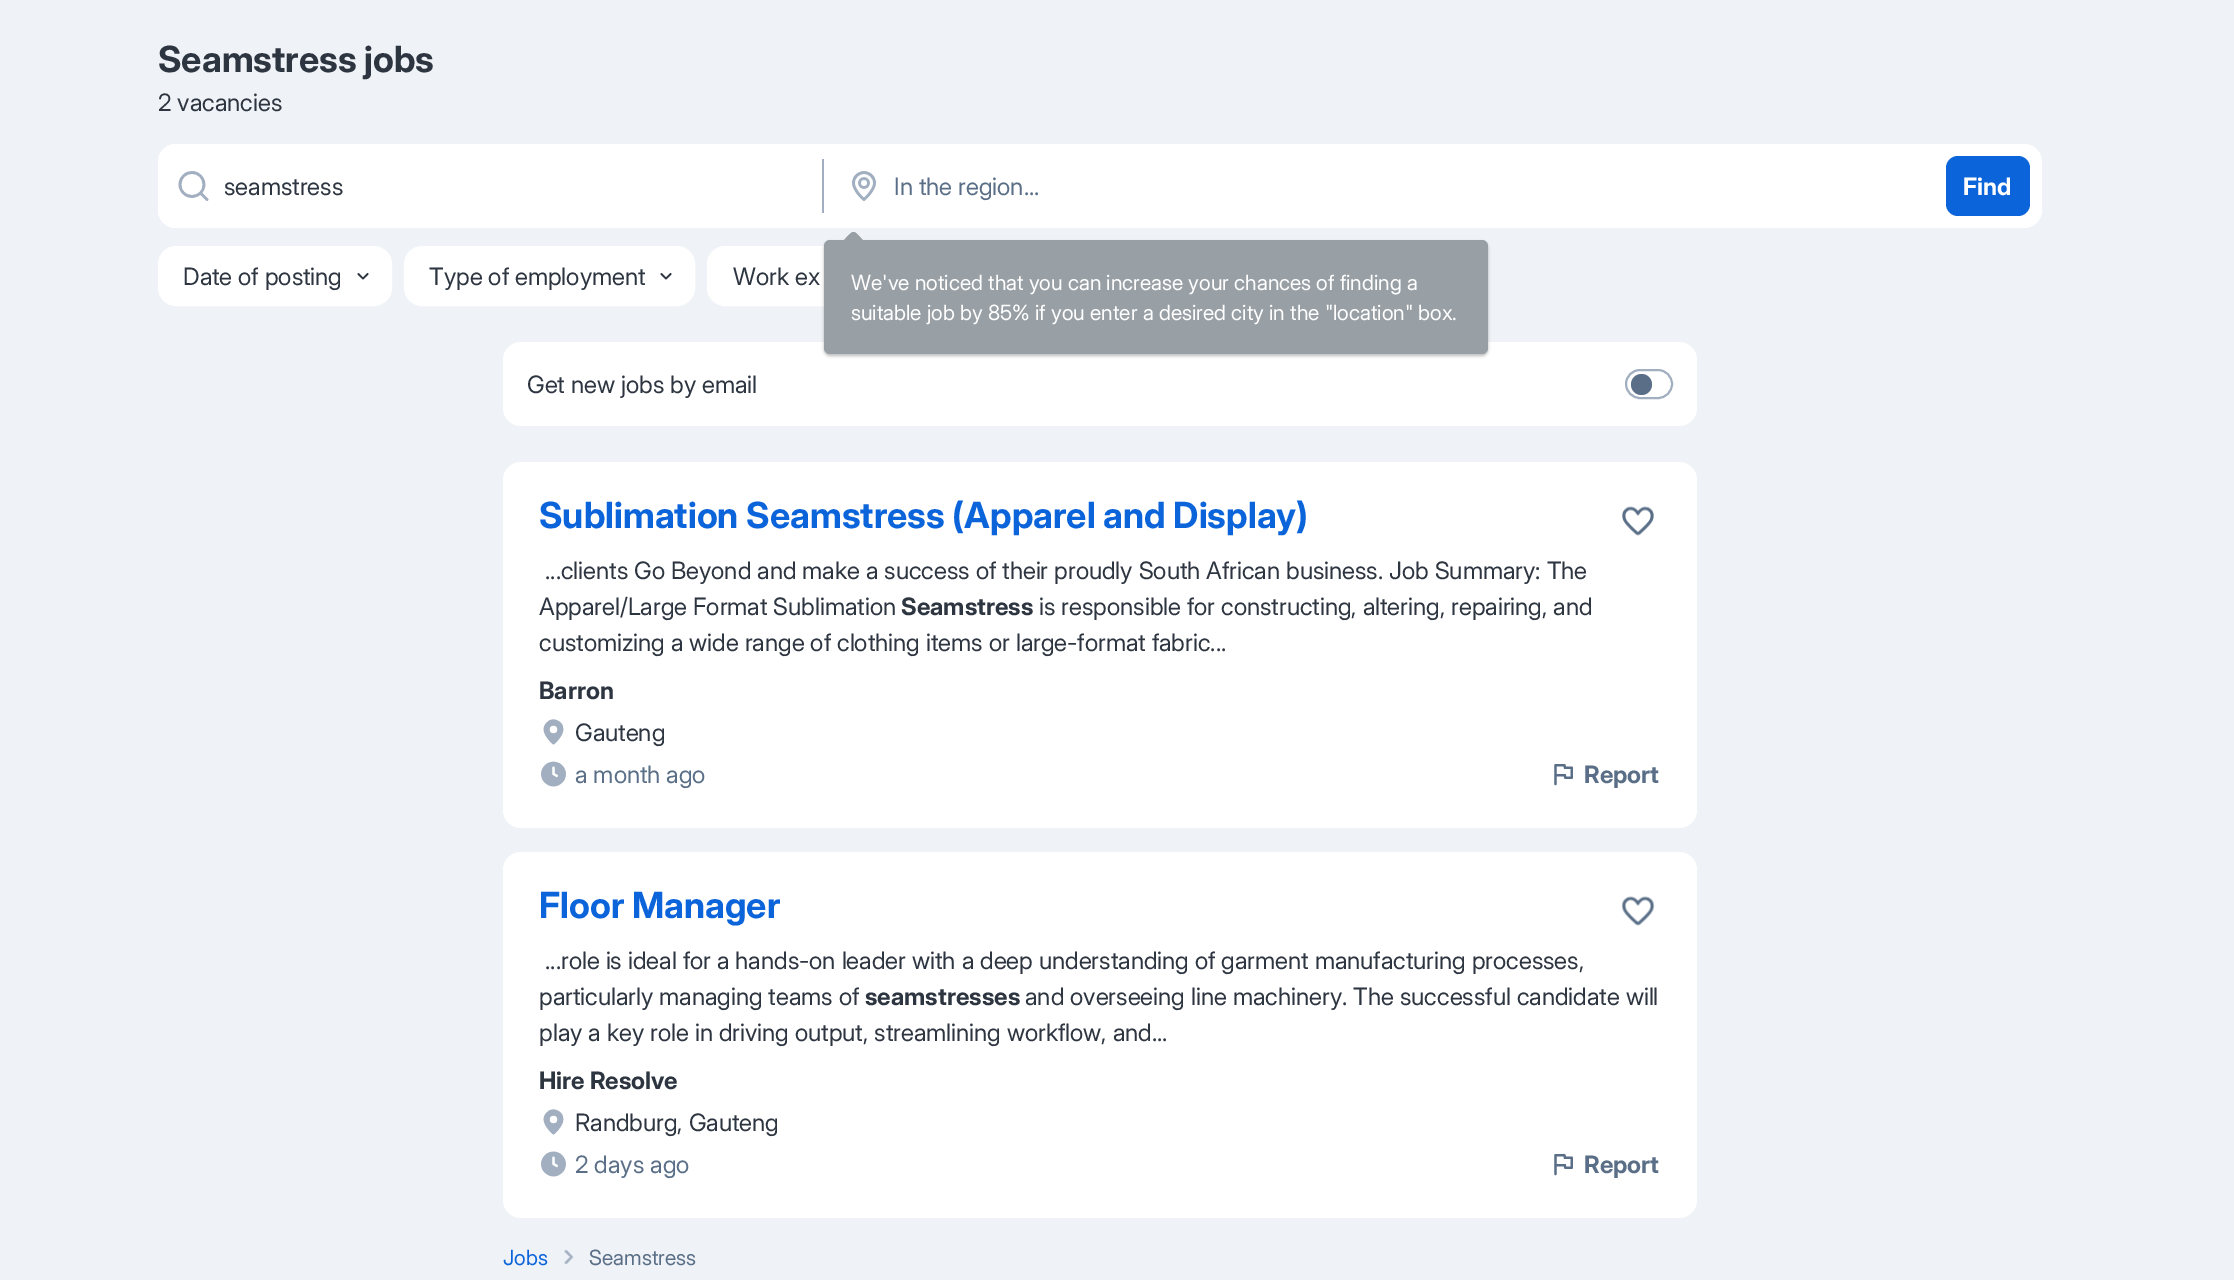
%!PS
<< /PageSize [2234 1280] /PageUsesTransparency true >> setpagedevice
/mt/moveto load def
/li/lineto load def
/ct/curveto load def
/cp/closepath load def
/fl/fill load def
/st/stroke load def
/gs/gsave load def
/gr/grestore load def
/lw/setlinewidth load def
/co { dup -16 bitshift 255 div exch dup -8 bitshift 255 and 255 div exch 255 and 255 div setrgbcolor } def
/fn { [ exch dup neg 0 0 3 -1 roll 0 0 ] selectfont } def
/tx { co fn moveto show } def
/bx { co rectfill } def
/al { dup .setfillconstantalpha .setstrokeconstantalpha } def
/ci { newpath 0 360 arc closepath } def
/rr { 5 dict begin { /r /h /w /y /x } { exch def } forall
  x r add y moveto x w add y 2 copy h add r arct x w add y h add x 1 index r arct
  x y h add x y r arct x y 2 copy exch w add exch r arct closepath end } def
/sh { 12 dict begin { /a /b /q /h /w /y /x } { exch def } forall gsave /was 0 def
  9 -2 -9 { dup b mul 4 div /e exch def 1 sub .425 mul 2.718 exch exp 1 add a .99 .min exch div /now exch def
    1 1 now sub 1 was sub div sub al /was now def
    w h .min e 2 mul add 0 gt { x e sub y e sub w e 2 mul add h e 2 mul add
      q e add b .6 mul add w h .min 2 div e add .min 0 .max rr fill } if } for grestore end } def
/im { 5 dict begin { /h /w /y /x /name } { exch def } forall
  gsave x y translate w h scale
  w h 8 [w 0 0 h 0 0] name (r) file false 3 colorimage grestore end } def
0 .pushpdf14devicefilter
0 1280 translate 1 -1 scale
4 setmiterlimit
0 0 2234 1280 16#EFF2F6 bx
16#FFFFFF co
158 144 1884 84 18 rr fl
176 144 mt 824 144 li 824 228 li 176 228 li 166 228 158 220 158 210 ct 158 162 li 158 152 166 144 176 144 ct cp fl
(media/1.raw) 178 171 31 30 im
822 159 2 54 16#A1AFC1 bx
(media/2.raw) 852 171 24 30 im
16#FFFFFF co
708 247 251 58 17 rr gs fl gr
2 lw
st
503 342 1194 84 18 rr fl
16#252626 co
824 242 664 114 6 1.5 .3 sh
16#989FA5 co
824 240 664 114 6 rr fl
843 241.5 mt 855 229 852 229 864 241.5 ct 853.5 252 li cp fl
843 241.5 mt 845 239 851 232 853.5 232 ct 853.5 233.5 li 852 233.5 850 236 845 241.5 ct cp fl
862 239.5 mt 864 241.5 li 862 241.5 li 857 236 855 233.5 853.5 233.5 ct 853.5 232 li 856 232 860.5 238 862 239.5 ct cp fl
16#0B64D9 co
1946 156 84 60 12 rr fl
16#FFFFFF co
159 247 232 58 17 rr gs fl gr
st
(media/3.raw) 357 273 12 7 im
405 247 289 58 17 rr gs fl gr
st
(media/3.raw) 660 273 12 7 im
16#A1AFC1 co
1626 370 46 28 14 rr st
16#5A6F87 co
1641.5 384.5 10.5 ci fl
16#FFFFFF co
503 462 1194 366 18 rr fl
(media/4.raw) 1622 506 32 30 im
(media/5.raw) 543 719 21 26 im
(media/6.raw) 541 761 25 26 im
(media/7.raw) 1554 764 19 22 im
503 852 1194 366 18 rr fl
(media/8.raw) 1621 896 34 30 im
(media/5.raw) 543 1109 21 26 im
(media/9.raw) 541 1151 25 26 im
(media/7.raw) 1554 1154 19 22 im
(media/10.raw) 564 1250 10 14 im
(Seamstress jobs) 158 72 /InterDisplay-Bold 36 16#2D3540 tx
(2 vacancies) 158 111 /InterDisplay-Regular 24 16#2D3540 tx
(seamstress) 224 195 /InterDisplay-Regular 24 16#2D3540 tx
(In the region...) 894 195 /InterDisplay-Regular 24 16#5A6F87 tx
(We've noticed that you can increase your chances of finding a) 851 290 /InterDisplay-Regular 21 16#FFFFFF tx
(suitable job by 85% if you enter a desired city in the "location" box.) 851 320 /InterDisplay-Regular 21 16#FFFFFF tx
(Find) 1963 195 /InterDisplay-Bold 24 16#FFFFFF tx
(Date of posting) 183 285 /InterDisplay-Regular 24 16#2D3540 tx
(Type of employment) 429 285 /InterDisplay-Regular 24 16#2D3540 tx
(Work ex) 733 285 /InterDisplay-Regular 24 16#2D3540 tx
(Get new jobs by email) 527 393 /InterDisplay-Regular 24 16#2D3540 tx
(Sublimation Seamstress \(Apparel and Display\)) 539 528 /InterDisplay-Bold 36 16#0B64D9 tx
(...clients Go Beyond and make a success of their proudly South African business. Job Summary: The) 545 579 /InterDisplay-Regular 24 16#2D3540 tx
(Apparel/Large Format Sublimation) 539 615 /InterDisplay-Regular 24 16#2D3540 tx
(Seamstress) 901 615 /InterDisplay-Bold 24 16#2D3540 tx
(is responsible for constructing, altering, repairing, and) 1039 615 /InterDisplay-Regular 24 16#2D3540 tx
(customizing a wide range of clothing items or large-format fabric...) 539 651 /InterDisplay-Regular 24 16#2D3540 tx
(Barron) 539 699 /InterDisplay-Bold 24 16#2D3540 tx
(Gauteng) 575 741 /InterDisplay-Regular 24 16#2D3540 tx
(a month ago) 575 783 /InterDisplay-Regular 24 16#5A6F87 tx
(Report) 1584 783 /InterDisplay-Bold 24 16#5A6F87 tx
(Floor Manager) 539 918 /InterDisplay-Bold 36 16#0B64D9 tx
(...role is ideal for a hands-on leader with a deep understanding of garment manufacturing processes,) 545 969 /InterDisplay-Regular 24 16#2D3540 tx
(particularly managing teams of) 539 1005 /InterDisplay-Regular 24 16#2D3540 tx
(seamstresses) 865 1005 /InterDisplay-Bold 24 16#2D3540 tx
(and overseeing line machinery. The successful candidate will) 1025 1005 /InterDisplay-Regular 24 16#2D3540 tx
(play a key role in driving output, streamlining workflow, and...) 539 1041 /InterDisplay-Regular 24 16#2D3540 tx
(Hire Resolve) 539 1089 /InterDisplay-Bold 24 16#2D3540 tx
(Randburg, Gauteng) 575 1131 /InterDisplay-Regular 24 16#2D3540 tx
(2 days ago) 575 1173 /InterDisplay-Regular 24 16#5A6F87 tx
(Report) 1584 1173 /InterDisplay-Bold 24 16#5A6F87 tx
(Jobs) 503 1265 /InterDisplay-Regular 21 16#0B64D9 tx
(Seamstress) 589 1265 /InterDisplay-Regular 21 16#5A6F87 tx
.poppdf14devicefilter showpage
